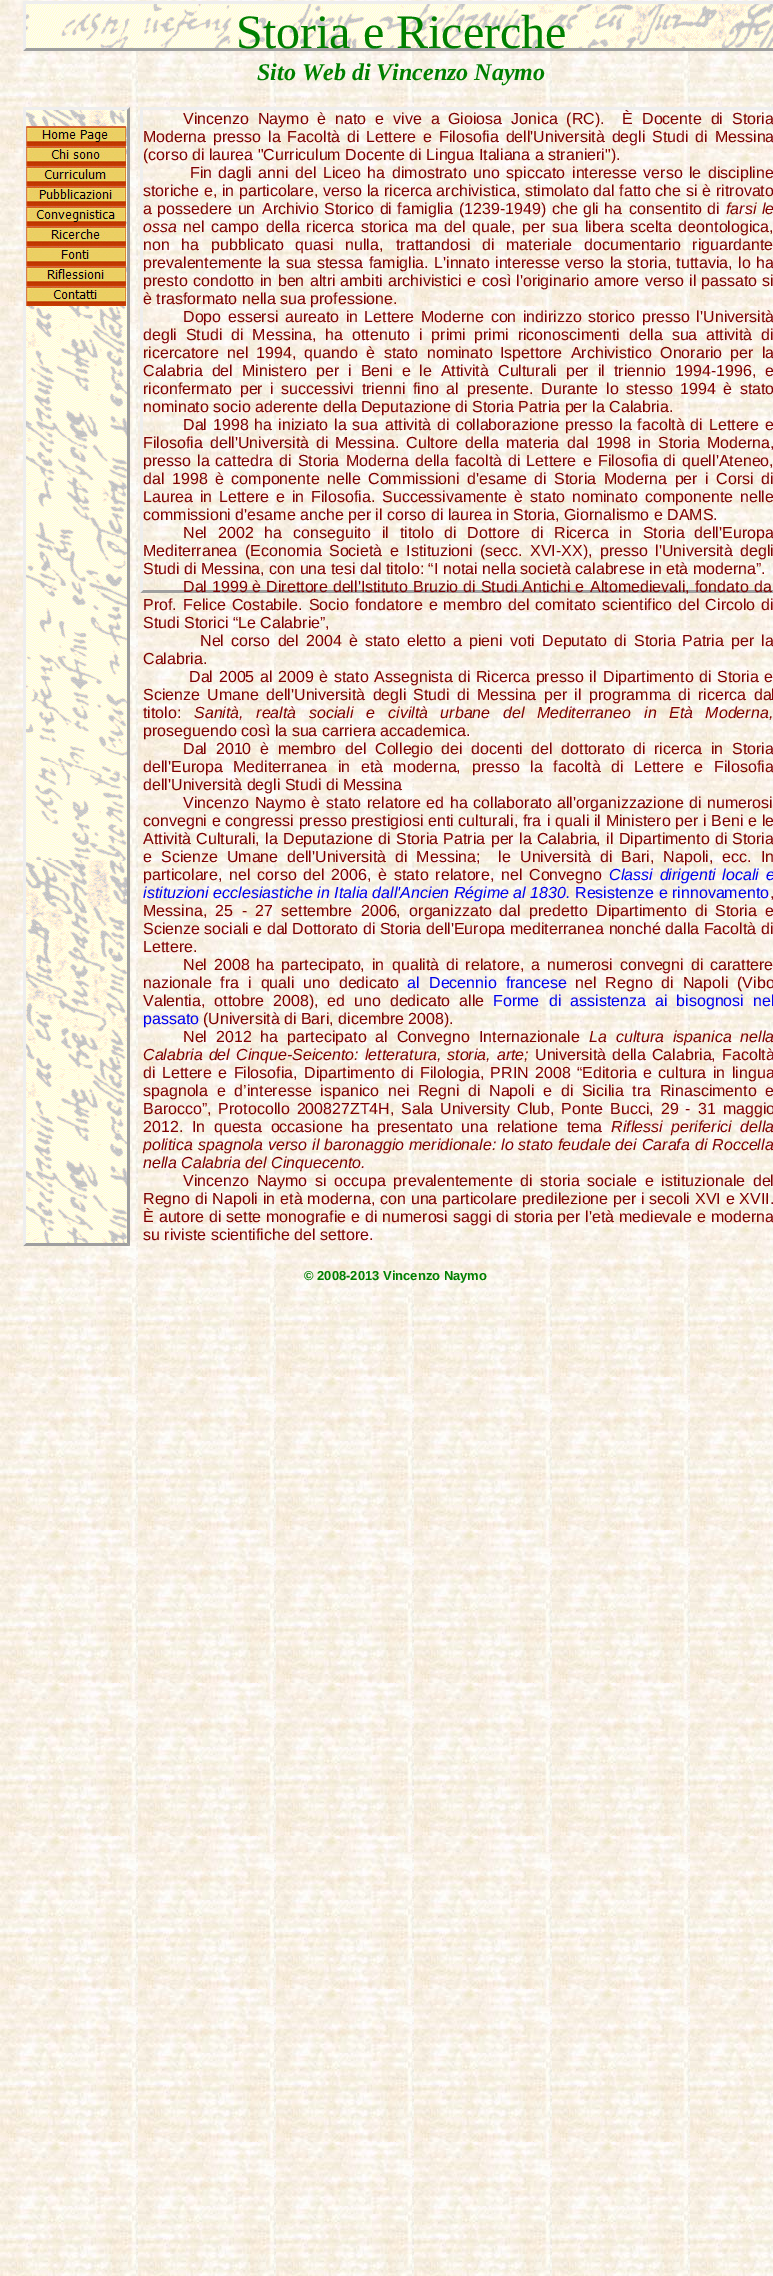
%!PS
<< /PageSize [773 2276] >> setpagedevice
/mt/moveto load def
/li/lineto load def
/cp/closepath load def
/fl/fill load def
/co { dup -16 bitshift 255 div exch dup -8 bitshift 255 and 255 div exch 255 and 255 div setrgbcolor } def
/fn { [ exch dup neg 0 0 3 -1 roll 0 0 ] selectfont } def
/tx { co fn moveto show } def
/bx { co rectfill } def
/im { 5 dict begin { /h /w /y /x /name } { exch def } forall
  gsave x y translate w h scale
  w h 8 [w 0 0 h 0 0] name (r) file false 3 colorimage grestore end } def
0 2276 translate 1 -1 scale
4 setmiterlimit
0 0 773 2276 16#FFFFFF bx
(media/1.raw) 0 0 773 2276 im
(media/2.raw) 23 1 750 50 im
16#EEEEEE co
23 1 mt 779 1 li 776 4 li 26 4 li cp fl
16#9F9F9F co
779 51 mt 23 51 li 26 48 li 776 48 li cp fl
16#EEEEEE co
23 51 mt 23 1 li 26 4 li 26 48 li cp fl
(media/3.raw) 23 107 107 1139 im
23 107 mt 130 107 li 127 110 li 26 110 li cp fl
16#9F9F9F co
130 107 mt 130 1246 li 127 1243 li 127 110 li cp fl
130 1246 mt 23 1246 li 26 1243 li 127 1243 li cp fl
16#EEEEEE co
23 1246 mt 23 107 li 26 110 li 26 1243 li cp fl
(media/4.raw) 26 126 100 20 im
(media/5.raw) 26 146 100 20 im
(media/6.raw) 26 166 100 20 im
(media/7.raw) 26 186 100 20 im
(media/8.raw) 26 206 100 20 im
(media/9.raw) 26 226 100 20 im
(media/10.raw) 26 246 100 20 im
(media/11.raw) 26 266 100 20 im
(media/12.raw) 26 286 100 20 im
140 107 mt 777 107 li 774 110 li 143 110 li cp fl
16#9F9F9F co
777 593 mt 140 593 li 143 590 li 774 590 li cp fl
16#EEEEEE co
140 593 mt 140 107 li 143 110 li 143 590 li cp fl
(Storia e Ricerche) 236 48 /LiberationSerif-Regular 48 16#008000 tx
(Sito Web di Vincenzo Naymo) 257 80 /LiberationSerif-BoldItalic 24 16#008000 tx
/LiberationSans-Regular 16 fn
16#800000 co
183 124 mt 4.5 0 32 (Vincenzo Naymo è nato e vive a) widthshow
448 124 mt 4.5 0 32 (Gioiosa Jonica \(RC\).  È) widthshow
642 124 mt 4.5 0 32 (Docente di Storia) widthshow
143 142 mt 2.5 0 32 (Moderna presso) widthshow
268 142 mt 2.5 0 32 (la Facoltà di Lettere e) widthshow
439 142 mt 2.5 0 32 (Filosofia dell'Università degli) widthshow
652 142 mt 2.5 0 32 (Studi di Messina) widthshow
(\(corso di laurea "Curriculum Docente di Lingua Italiana a stranieri"\).) 143 160 /LiberationSans-Regular 16 16#800000 tx
(Fin) 190 178 /LiberationSans-Regular 16 16#800000 tx
218 178 mt 2 0 32 (dagli anni del Liceo ha) widthshow
392 178 mt 2 0 32 (dimostrato uno spiccato) widthshow
572 178 mt 2 0 32 (interesse verso le discipline) widthshow
143 196 mt .25 0 32 (storiche e, in particolare, verso la ricerca archivistica, stimolato dal fatto che si è) widthshow
(ritrovato) 716 196 /LiberationSans-Regular 16 16#800000 tx
143 214 mt 1 0 32 (a possedere un) widthshow
262 214 mt 1 0 32 (Archivio Storico di famiglia) widthshow
459 214 mt 1 0 32 (\(1239-1949\) che gli ha) widthshow
629 214 mt 1 0 32 (consentito di) widthshow
/LiberationSans-Italic 16 fn
726 214 mt 1 0 32 (farsi le) widthshow
(ossa) 143 232 /LiberationSans-Italic 16 16#800000 tx
/LiberationSans-Regular 16 fn
183 232 mt 2.25 0 32 (nel campo della ricerca storica) widthshow
415 232 mt 2.25 0 32 (ma del quale, per sua libera) widthshow
630 232 mt 2.25 0 32 (scelta deontologica,) widthshow
143 250 mt 7 0 32 (non ha) widthshow
211 250 mt 7 0 32 (pubblicato quasi nulla,) widthshow
396 250 mt 7 0 32 (trattandosi di materiale) widthshow
584 250 mt 7 0 32 (documentario riguardante) widthshow
143 268 mt 1 0 32 (prevalentemente la sua stessa) widthshow
369 268 mt 1 0 32 (famiglia. L'innato interesse) widthshow
565 268 mt 1 0 32 (verso la storia, tuttavia, lo ha) widthshow
143 286 mt 1 0 32 (presto condotto in ben altri) widthshow
340 286 mt 1 0 32 (ambiti archivistici e così) widthshow
516 286 mt 1 0 32 (l'originario amore verso il) widthshow
701 286 mt 1 0 32 (passato si) widthshow
(è trasformato nella sua professione.) 143 304 /LiberationSans-Regular 16 16#800000 tx
183 322 mt 2 0 32 (Dopo essersi aureato in Lettere) widthshow
421 322 mt 2 0 32 (Moderne con indirizzo storico) widthshow
642 322 mt 2 0 32 (presso l'Università) widthshow
143 340 mt 4.5 0 32 (degli Studi) widthshow
231 340 mt 4.5 0 32 (di Messina, ha ottenuto i primi) widthshow
474 340 mt 4.5 0 32 (primi riconoscimenti della sua) widthshow
706 340 mt 4.5 0 32 (attività di) widthshow
143 358 mt 4 0 32 (ricercatore nel) widthshow
256 358 mt 4 0 32 (1994, quando è stato nominato) widthshow
500 358 mt 4 0 32 (Ispettore Archivistico Onorario) widthshow
730 358 mt 4 0 32 (per la) widthshow
143 376 mt 4.5 0 32 (Calabria del Ministero) widthshow
316 376 mt 4.5 0 32 (per i Beni e le Attività) widthshow
498 376 mt 4.5 0 32 (Culturali per il triennio) widthshow
675 376 mt 4.5 0 32 (1994-1996, e) widthshow
143 394 mt 3.25 0 32 (riconfermato per i) widthshow
281 394 mt 3.25 0 32 (successivi trienni fino al) widthshow
467 394 mt 3.25 0 32 (presente. Durante lo stesso 1994) widthshow
723 394 mt 3.25 0 32 (è stato) widthshow
(nominato socio aderente della Deputazione di Storia Patria per la Calabria.) 143 412 /LiberationSans-Regular 16 16#800000 tx
183 430 mt 1.5 0 32 (Dal 1998 ha iniziato la sua) widthshow
385 430 mt 1.5 0 32 (attività di collaborazione) widthshow
565 430 mt 1.5 0 32 (presso la facoltà di Lettere e) widthshow
143 448 mt 2.75 0 32 (Filosofia dell'Università di) widthshow
335 448 mt 2.75 0 32 (Messina. Cultore della materia) widthshow
567 448 mt 2.75 0 32 (dal 1998 in Storia Moderna,) widthshow
143 466 mt 1.5 0 32 (presso la cattedra di Storia) widthshow
346 466 mt 1.5 0 32 (Moderna della facoltà di Lettere) widthshow
583 466 mt 1.5 0 32 (e Filosofia di quell'Ateneo,) widthshow
(dal) 143 484 /LiberationSans-Regular 16 16#800000 tx
172 484 mt 3 0 32 (1998 è componente nelle) widthshow
368 484 mt 3 0 32 (Commissioni d'esame di Storia) widthshow
604 484 mt 3 0 32 (Moderna per i Corsi di) widthshow
143 502 mt 2.5 0 32 (Laurea in) widthshow
219 502 mt 2.5 0 32 (Lettere e in Filosofia.) widthshow
382 502 mt 2.5 0 32 (Successivamente è stato nominato) widthshow
645 502 mt 2.5 0 32 (componente nelle) widthshow
(commissioni d'esame anche per il corso di laurea in Storia, Giornalismo e DAMS.) 143 520 /LiberationSans-Regular 16 16#800000 tx
183 538 mt 6.5 0 32 (Nel 2002 ha conseguito il titolo) widthshow
444 538 mt 6.5 0 32 (di Dottore di Ricerca in Storia) widthshow
(dell'Europa) 694 538 /LiberationSans-Regular 16 16#800000 tx
(Mediterranea) 143 556 /LiberationSans-Regular 16 16#800000 tx
245 556 mt 3 0 32 (\(Economia Società e Istituzioni) widthshow
480 556 mt 3 0 32 (\(secc. XVI-XX\), presso) widthshow
655 556 mt 3 0 32 (l'Università degli) widthshow
(Studi di Messina, con una tesi dal titolo: “I notai nella società calabrese in età moderna”.) 143 574 /LiberationSans-Regular 16 16#800000 tx
183 592 mt .5 0 32 (Dal 1999 è Direttore dell'Istituto) widthshow
413 592 mt .5 0 32 (Bruzio di Studi Antichi e) widthshow
590 592 mt 1 0 32 (Altomedievali, fondato dal) widthshow
(Prof.) 143 610 /LiberationSans-Regular 16 16#800000 tx
183 610 mt 1.5 0 32 (Felice Costabile. Socio) widthshow
355 610 mt 1.5 0 32 (fondatore e membro del comitato) widthshow
602 610 mt 1.5 0 32 (scientifico del Circolo di) widthshow
(Studi Storici “Le Calabrie”,) 143 628 /LiberationSans-Regular 16 16#800000 tx
200 646 mt 2.75 0 32 (Nel corso del 2004 è stato eletto a) widthshow
469 646 mt 2.75 0 32 (pieni voti Deputato di Storia) widthshow
682 646 mt 2.75 0 32 (Patria per la) widthshow
(Calabria.) 143 664 /LiberationSans-Regular 16 16#800000 tx
189 682 mt 1.25 0 32 (Dal 2005 al 2009 è stato Assegnista) widthshow
458 682 mt 1 0 32 (di Ricerca presso il) widthshow
603 682 mt 1 0 32 (Dipartimento di Storia e) widthshow
(Scienze) 143 700 /LiberationSans-Regular 16 16#800000 tx
207 700 mt 3 0 32 (Umane dell'Università degli) widthshow
413 700 mt 3 0 32 (Studi di Messina per il) widthshow
589 700 mt 3 0 32 (programma di ricerca dal) widthshow
(titolo:) 143 718 /LiberationSans-Regular 16 16#800000 tx
/LiberationSans-Italic 16 fn
194 718 mt 8 0 32 (Sanità, realtà sociali e) widthshow
388 718 mt 8 0 32 (civiltà urbane del Mediterraneo) widthshow
644 718 mt 8 0 32 (in Età Moderna,) widthshow
(proseguendo così la sua carriera accademica.) 143 736 /LiberationSans-Regular 16 16#800000 tx
183 754 mt 4.25 0 32 (Dal 2010 è membro del Collegio) widthshow
441 754 mt 4.25 0 32 (dei docenti del dottorato di) widthshow
654 754 mt 4.25 0 32 (ricerca in Storia) widthshow
(dell'Europa) 143 772 /LiberationSans-Regular 16 16#800000 tx
233 772 mt 6 0 32 (Mediterranea in età moderna,) widthshow
472 772 mt 6 0 32 (presso la facoltà di Lettere e) widthshow
(Filosofia) 714 772 /LiberationSans-Regular 16 16#800000 tx
(dell'Università degli Studi di Messina) 143 790 /LiberationSans-Regular 16 16#800000 tx
183 808 mt 1.5 0 32 (Vincenzo Naymo è stato relatore) widthshow
426 808 mt 1.5 0 32 (ed ha collaborato) widthshow
557 808 mt 1 0 32 (all'organizzazione di numerosi) widthshow
143 826 mt .25 0 32 (convegni e congressi presso prestigiosi enti culturali, fra) widthshow
547 826 mt .25 0 32 (i quali il Ministero per i Beni e le) widthshow
143 844 mt 1 0 32 (Attività Culturali, la) widthshow
283 844 mt 1 0 32 (Deputazione di Storia Patria per) widthshow
519 844 mt 1 0 32 (la Calabria, il Dipartimento di) widthshow
(Storia) 732 844 /LiberationSans-Regular 16 16#800000 tx
143 862 mt 4.5 0 32 (e Scienze Umane) widthshow
287 862 mt 4.5 0 32 (dell'Università di Messina;  le) widthshow
520 862 mt 4.5 0 32 (Università di Bari, Napoli, ecc.) widthshow
(In) 761 862 /LiberationSans-Regular 16 16#800000 tx
143 880 mt 2.5 0 32 (particolare, nel corso del) widthshow
331 880 mt 2.5 0 32 (2006, è stato relatore, nel) widthshow
(Convegno) 529 880 /LiberationSans-Regular 16 16#800000 tx
/LiberationSans-Italic 16 fn
16#0000EE co
609 880 mt 2.5 0 32 (Classi dirigenti locali e) widthshow
(istituzioni ecclesiastiche in Italia dall'Ancien Régime al 1830.) 143 898 /LiberationSans-Italic 16 16#0000EE tx
(Resistenze e rinnovamento) 575 898 /LiberationSans-Regular 16 16#0000EE tx
(,) 770 898 /LiberationSans-Regular 16 16#800000 tx
143 916 mt 4 0 32 (Messina, 25 -) widthshow
255 916 mt 4 0 32 (27 settembre 2006, organizzato) widthshow
499 916 mt 4 0 32 (dal predetto Dipartimento di) widthshow
715 916 mt 4 0 32 (Storia e) widthshow
(Scienze sociali e dal Dottorato di Storia dell'Europa mediterranea nonché dalla Facoltà di) 143 934 /LiberationSans-Regular 16 16#800000 tx
(Lettere.) 143 952 /LiberationSans-Regular 16 16#800000 tx
183 970 mt 2.5 0 32 (Nel 2008 ha partecipato, in) widthshow
392 970 mt 2.5 0 32 (qualità di relatore, a numerosi convegni di carattere) widthshow
143 988 mt 4.5 0 32 (nazionale fra i quali) widthshow
303 988 mt 4.5 0 32 (uno dedicato) widthshow
(al) 407 988 /LiberationSans-Regular 16 16#0000EE tx
429 988 mt 4.5 0 32 (Decennio francese) widthshow
16#800000 co
575 988 mt 4.5 0 32 (nel Regno di Napoli \(Vibo) widthshow
143 1006 mt 4.5 0 32 (Valentia, ottobre 2008\), ed) widthshow
354 1006 mt 4.5 0 32 (uno dedicato alle) widthshow
(Forme) 493 1006 /LiberationSans-Regular 16 16#0000EE tx
549 1006 mt 4.5 0 32 (di assistenza ai bisognosi nel) widthshow
(passato) 143 1024 /LiberationSans-Regular 16 16#0000EE tx
(\(Università di Bari, dicembre 2008\).) 203 1024 /LiberationSans-Regular 16 16#800000 tx
183 1042 mt 4.5 0 32 (Nel 2012 ha partecipato al Convegno) widthshow
(Internazionale) 479 1042 /LiberationSans-Regular 16 16#800000 tx
/LiberationSans-Italic 16 fn
589 1042 mt 4.5 0 32 (La cultura ispanica nella) widthshow
143 1060 mt 1.5 0 32 (Calabria del) widthshow
236 1060 mt 1.5 0 32 (Cinque-Seicento: letteratura, storia, arte;) widthshow
/LiberationSans-Regular 16 fn
535 1060 mt 1.5 0 32 (Università della Calabria,) widthshow
(Facoltà) 722 1060 /LiberationSans-Regular 16 16#800000 tx
143 1078 mt 2 0 32 (di Lettere e Filosofia, Dipartimento di Filologia, PRIN 2008) widthshow
577 1078 mt 2 0 32 (“Editoria e cultura in lingua) widthshow
143 1096 mt 4.25 0 32 (spagnola e d’interesse ispanico nei Regni di) widthshow
489 1096 mt 4.25 0 32 (Napoli e di Sicilia tra Rinascimento e) widthshow
143 1114 mt 2.5 0 32 (Barocco”, Protocollo 200827ZT4H, Sala) widthshow
440 1114 mt 2.5 0 32 (University Club, Ponte Bucci, 29 - 31 maggio) widthshow
143 1132 mt 4.25 0 32 (2012. In questa occasione ha) widthshow
377 1132 mt 4.25 0 32 (presentato una relatione tema) widthshow
/LiberationSans-Italic 16 fn
611 1132 mt 4.25 0 32 (Riflessi periferici della) widthshow
(politica) 143 1150 /LiberationSans-Italic 16 16#800000 tx
198 1150 mt .5 0 32 (spagnola verso il baronaggio meridionale:) widthshow
501 1150 mt .5 0 32 (lo stato feudale dei Carafa di Roccella) widthshow
(nella Calabria del Cinquecento.) 143 1168 /LiberationSans-Italic 16 16#800000 tx
/LiberationSans-Regular 16 fn
183 1186 mt 3.25 0 32 (Vincenzo Naymo si occupa prevalentemente di storia sociale e istituzionale del) widthshow
143 1204 mt .5 0 32 (Regno di Napoli in età moderna, con una particolare predilezione per i) widthshow
649 1204 mt .5 0 32 (secoli XVI e XVII.) widthshow
143 1222 mt .5 0 32 (È autore di sette monografie e di numerosi saggi di storia) widthshow
557 1222 mt .5 0 32 (per l'età medievale e moderna) widthshow
(su riviste scientifiche del settore.) 143 1240 /LiberationSans-Regular 16 16#800000 tx
(© 2008-2013 Vincenzo Naymo) 304 1280 /LiberationSans-Bold 13 16#008000 tx
showpage
